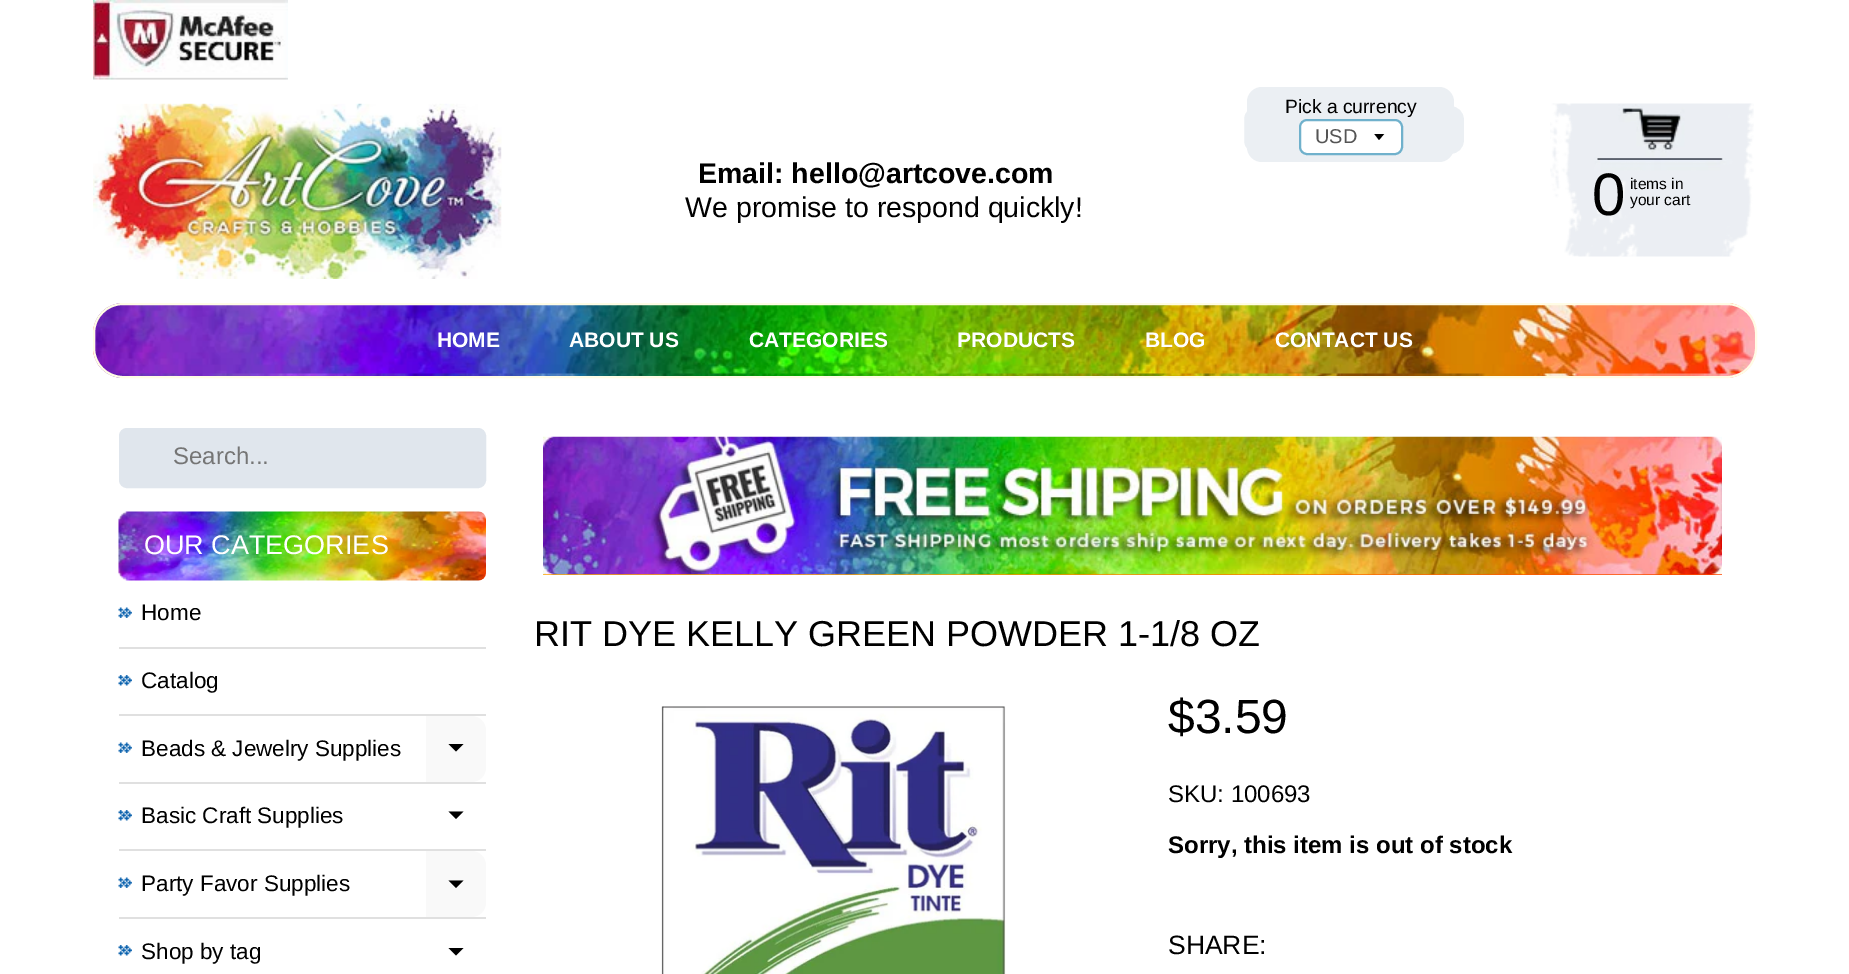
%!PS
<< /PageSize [1849 974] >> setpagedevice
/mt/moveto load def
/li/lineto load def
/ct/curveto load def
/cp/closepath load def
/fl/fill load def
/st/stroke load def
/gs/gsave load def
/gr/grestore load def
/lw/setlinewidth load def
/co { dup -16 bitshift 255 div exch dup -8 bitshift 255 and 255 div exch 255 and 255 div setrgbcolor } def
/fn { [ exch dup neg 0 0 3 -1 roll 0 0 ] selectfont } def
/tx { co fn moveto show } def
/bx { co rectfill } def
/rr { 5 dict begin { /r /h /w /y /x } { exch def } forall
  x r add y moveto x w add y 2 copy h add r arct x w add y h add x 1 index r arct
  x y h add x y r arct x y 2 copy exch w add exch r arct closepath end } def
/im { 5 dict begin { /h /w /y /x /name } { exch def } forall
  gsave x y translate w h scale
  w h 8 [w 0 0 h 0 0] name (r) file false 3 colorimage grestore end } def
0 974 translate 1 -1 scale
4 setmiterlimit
0 0 1849 974 16#FFFFFF bx
(media/1.raw) 93 0 195 80 im
16#EBEFF3 co
1243 105 222 50 14 rr gs fl gr
16#FFFFFF co
2 lw
st
16#EBEFF3 co
1247 87 207 75 15 rr fl
16#FFFFFF co
1299 119 104 36 8 rr fl
gs
1374 134 12 7 rectclip
16#000000 co
1374 133.5 mt 1379 140 li 1384.5 133.5 li cp fl
gr
16#70B1CC co
1300 120 102 34 7 rr st
(media/2.raw) 93 103 409 176 im
(media/3.raw) 1550 103 204 154 im
(media/4.raw) 93 303 1664 75 im
16#FFFCE5 co
94 304 1662 73 29 rr st
16#E0E6ED co
120 429 365 58 7 rr gs fl gr
st
(media/5.raw) 118 511 368 70 im
(media/6.raw) 118 607 14 11 im
119 647 367 2 16#E0E0E0 bx
(media/7.raw) 118 675 14 11 im
119 714 367 2 16#E0E0E0 bx
(media/6.raw) 118 742 14 11 im
119 782 367 2 16#E0E0E0 bx
16#F9F9F9 co
426 716 mt 471 716 li 479.5 716 486 722.5 486 731 ct 486 767 li 486 775.5 479.5 782 471 782 ct 426 782 li cp fl
16#000000 co
448.5 744 mt 463.5 744 li 456 751.5 li cp fl
(media/7.raw) 118 810 14 11 im
119 849 367 2 16#E0E0E0 bx
16#000000 co
448.5 811.5 mt 463.5 811.5 li 456 819 li cp fl
(media/6.raw) 118 877 14 11 im
119 917 367 2 16#E0E0E0 bx
16#F9F9F9 co
426 851 mt 471 851 li 479.5 851 486 857.5 486 866 ct 486 902 li 486 910.5 479.5 917 471 917 ct 426 917 li cp fl
16#000000 co
448.5 880.5 mt 463.5 880.5 li 456 888 li cp fl
(media/7.raw) 118 945 14 11 im
448.5 948 mt 463.5 948 li 456 955.5 li cp fl
gs 543 574 mt 1722 574 li 1722 575 li 543 575 li cp clip newpath
<< /ShadingType 2 /ColorSpace /DeviceRGB /Coords [803 176 1462 835] /Extend [true true] /Function << /FunctionType 3 /Domain [0 1] /Functions [<< /FunctionType 2 /Domain [0 1] /C0 [1 .659 0] /C1 [1 .659 0] /N 1 >> << /FunctionType 2 /Domain [0 1] /C0 [1 .659 0] /C1 [.988 .271 0] /N 1 >>] /Bounds [.3] /Encode [0 1 0 1] >> >> shfill gr
(media/8.raw) 543 436 1179 139 im
(media/9.raw) 661 706 345 268 im
(Pick a currency) 1285 113 /LiberationSans-Regular 19.25 16#000000 tx
(USD) 1315 143 /LiberationSans-Regular 20 16#555555 tx
(Email: hello@artcove.com) 698 183 /LiberationSans-Bold 28.5 16#000000 tx
(We promise to respond quickly!) 685 217 /LiberationSans-Regular 28.5 16#000000 tx
(0) 1592 215 /LiberationSans-Regular 60 16#000000 tx
(items in) 1630 189 /LiberationSans-Regular 15.5 16#000000 tx
(your cart) 1630 205 /LiberationSans-Regular 15.5 16#000000 tx
(HOME) 437 347 /LiberationSans-Bold 21 16#FFFFFF tx
(ABOUT US) 569 347 /LiberationSans-Bold 21 16#FFFFFF tx
(CATEGORIES) 749 347 /LiberationSans-Bold 21 16#FFFFFF tx
(PRODUCTS) 957 347 /LiberationSans-Bold 21 16#FFFFFF tx
(BLOG) 1145 347 /LiberationSans-Bold 21 16#FFFFFF tx
(CONTACT US) 1275 347 /LiberationSans-Bold 21 16#FFFFFF tx
(Search...) 173 464 /LiberationSans-Regular 24 16#757575 tx
(OUR CATEGORIES) 144 554 /LiberationSans-Regular 27 16#FFFFFF tx
(Home) 141 620 /LiberationSans-Regular 22.5 16#000000 tx
(Catalog) 141 688 /LiberationSans-Regular 22.5 16#000000 tx
(Beads & Jewelry Supplies) 141 756 /LiberationSans-Regular 22.5 16#000000 tx
(Basic Craft Supplies) 141 823 /LiberationSans-Regular 22.5 16#000000 tx
(Party Favor Supplies) 141 891 /LiberationSans-Regular 22.5 16#000000 tx
(Shop by tag) 141 959 /LiberationSans-Regular 22.5 16#000000 tx
(RIT DYE KELLY GREEN POWDER 1-1/8 OZ) 534 646 /LiberationSans-Regular 36 16#000000 tx
($3.59) 1168 733 /LiberationSans-Regular 48 16#000000 tx
(SKU: 100693) 1168 802 /LiberationSans-Regular 24 16#000000 tx
(Sorry, this item is out of stock) 1168 853 /LiberationSans-Bold 24 16#000000 tx
(SHARE:) 1168 954 /LiberationSans-Regular 26.5 16#000000 tx
showpage
